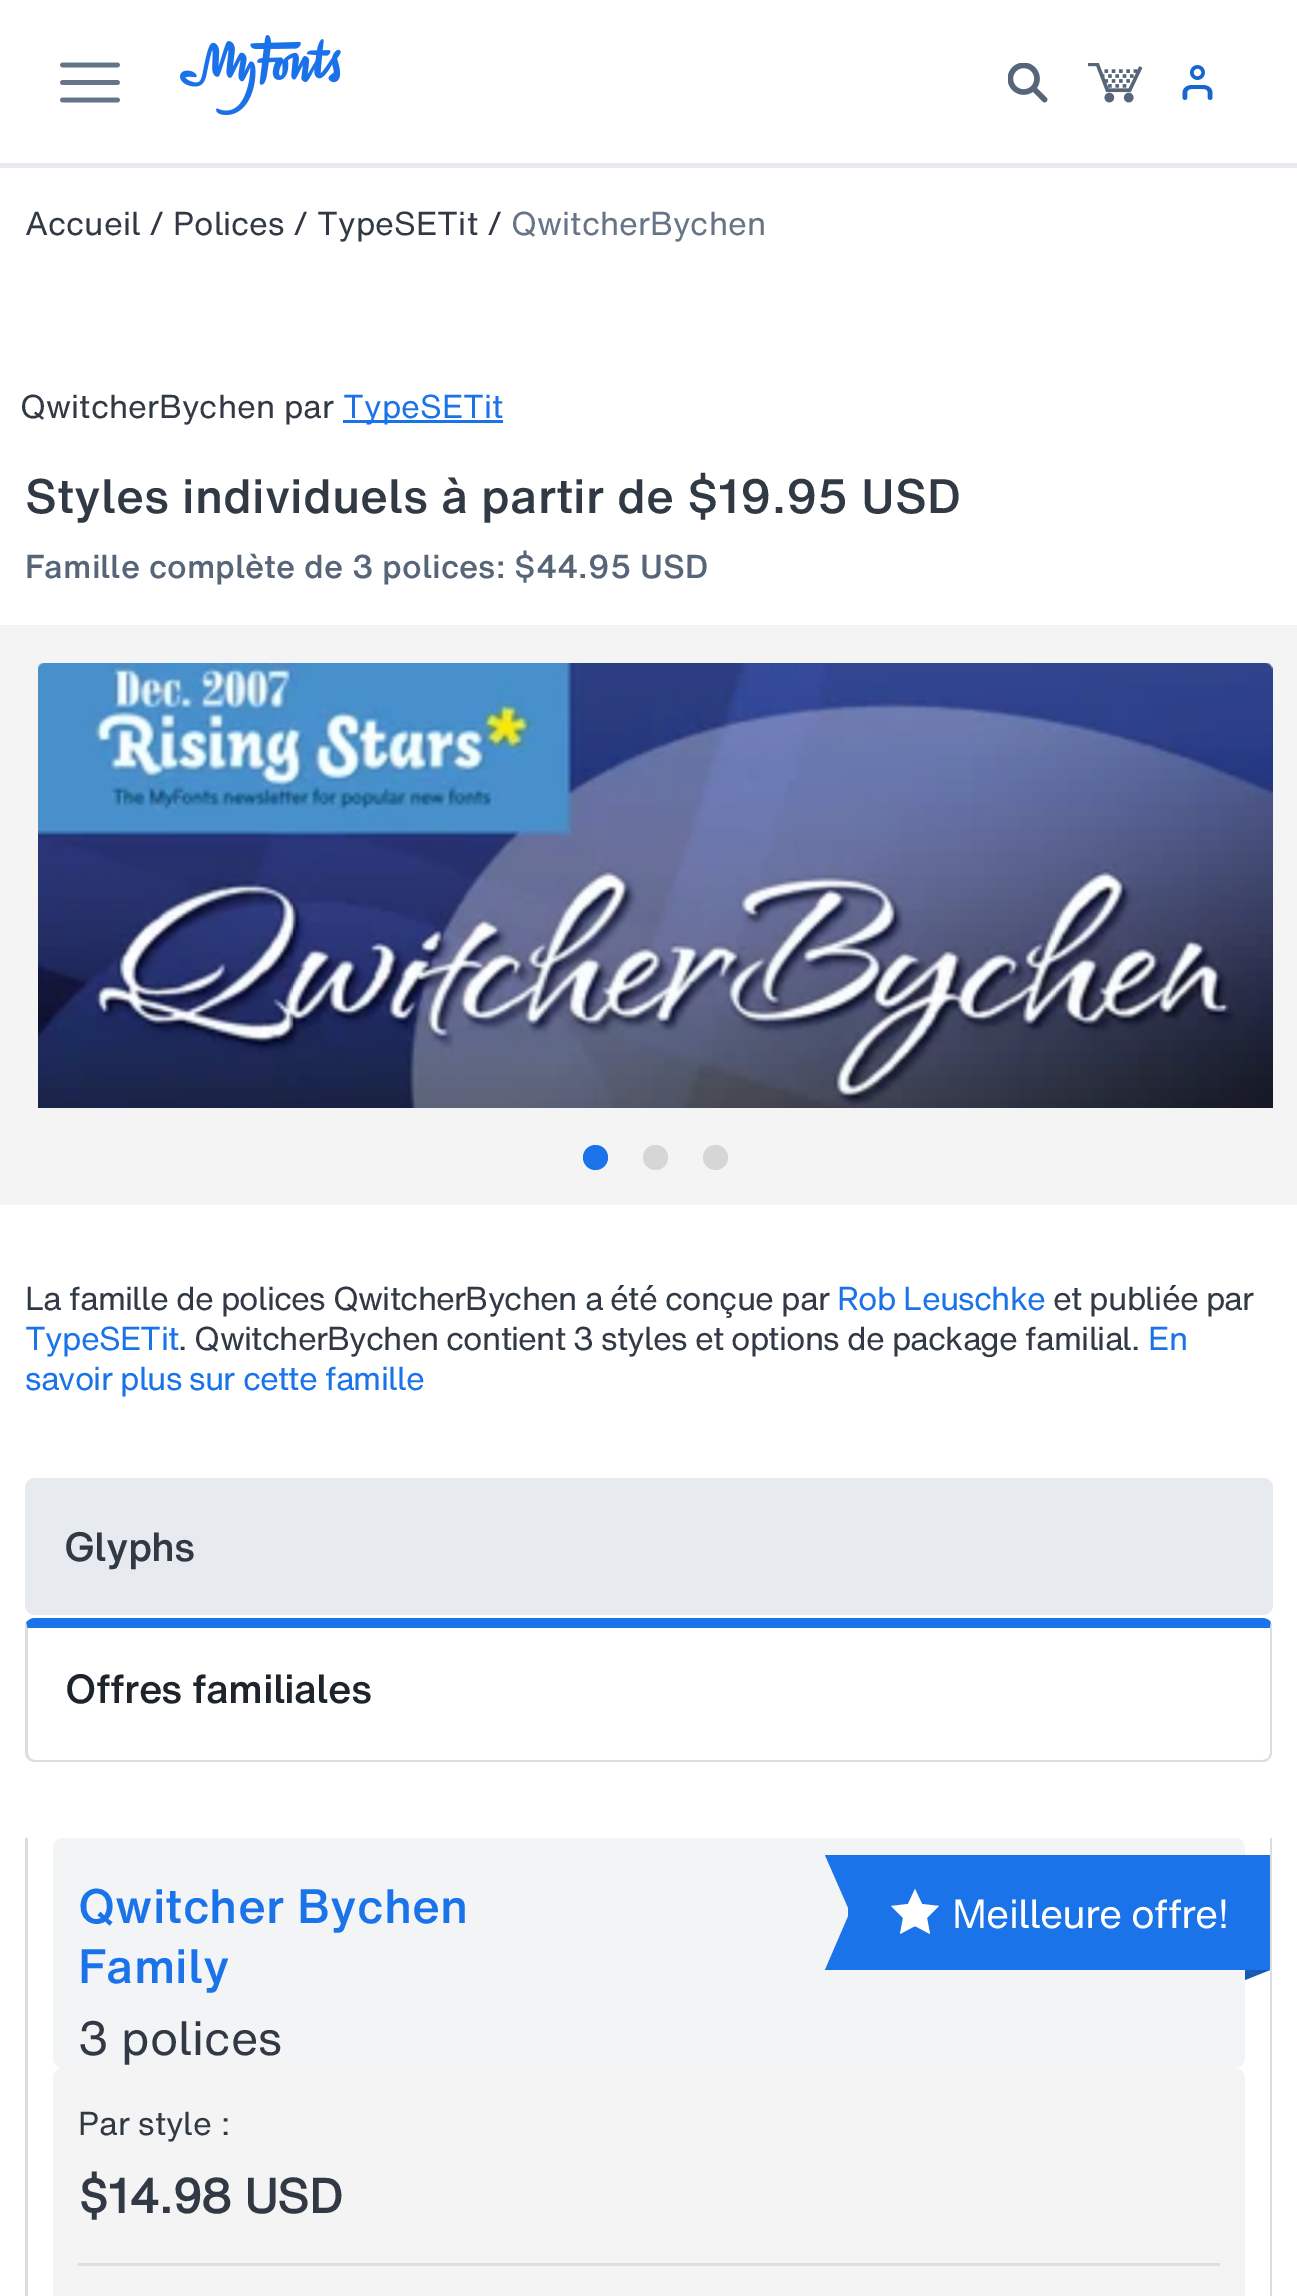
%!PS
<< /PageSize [1297 2296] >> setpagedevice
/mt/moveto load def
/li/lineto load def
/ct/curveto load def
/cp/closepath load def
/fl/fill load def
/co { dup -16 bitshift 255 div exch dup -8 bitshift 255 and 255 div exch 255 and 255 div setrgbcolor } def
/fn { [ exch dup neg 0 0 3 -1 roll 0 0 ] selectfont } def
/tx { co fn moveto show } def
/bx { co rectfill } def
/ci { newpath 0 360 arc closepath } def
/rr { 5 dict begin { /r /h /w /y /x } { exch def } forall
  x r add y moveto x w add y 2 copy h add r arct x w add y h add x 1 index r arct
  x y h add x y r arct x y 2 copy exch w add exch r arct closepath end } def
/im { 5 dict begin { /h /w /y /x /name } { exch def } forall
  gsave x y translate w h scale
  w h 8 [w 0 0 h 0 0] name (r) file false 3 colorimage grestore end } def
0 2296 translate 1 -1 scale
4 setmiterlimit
0 0 1297 2296 16#FFFFFF bx
0 163 1297 5 16#E7EAEE bx
(media/1.raw) 60 62 60 41 im
(media/2.raw) 180 35 161 80 im
(media/3.raw) 1008 63 40 40 im
(media/4.raw) 1088 63 55 40 im
(media/5.raw) 1182 65 31 35 im
343 420 160 3 16#1A73E8 bx
0 625 1297 580 16#F4F4F4 bx
(media/6.raw) 38 663 1235 445 im
16#1A73E8 co
595.5 1157.5 12.5 ci fl
16#D6D6D6 co
655.5 1157.5 12.5 ci fl
715.5 1157.5 12.5 ci fl
16#E7EAEE co
25 1478 1248 137 10 rr fl
16#1A73E8 co
35 1618 mt 31 1618 28 1620 26 1623 ct 28 1630 li 28 1628 li 1270 1628 li 1271 1623 li 1270 1620 1266 1618 1262 1618 ct cp fl
16#DDDDDD co
1271 1623 mt 1272 1625 1272 1626 1272 1628 ct 1272 1752 li 1272 1755 1271 1758 1269 1759 ct 1268 1758 li 1269 1756 1270 1754 1270 1752 ct 1270 1628 li cp fl
1269 1759 mt 1268 1761 1265 1762 1262 1762 ct 35 1762 li 32 1762 30 1761 28 1759 ct 30 1758 li 31 1759 33 1760 35 1760 ct 1262 1760 li 1264 1760 1266 1759 1268 1758 ct cp fl
25 1628 mt 25 1752 li 25 1755 26 1758 28 1759 ct 30 1758 li 29 1756 28 1754 28 1752 ct 28 1630 li 26 1623 li 25 1624 25 1626 25 1628 ct cp fl
25 1838 mt 1272 1838 li 1272 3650 li 1272 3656 1268 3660 1262 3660 ct 35 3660 li 29 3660 25 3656 25 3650 ct cp 28 1838 mt 1270 1838 li 1270 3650 li 1270 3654 1267 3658 1262 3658 ct 35 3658 li 31 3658 28 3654 28 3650 ct cp eofill
16#F3F4F6 co
53 1838 1192 230 10 rr fl
848 1855 422 115 16#1A73E8 bx
825 1855 mt 850 1855 li 850 1912 li cp fl
850 1970 mt 825 1970 li 850 1912 li cp fl
16#FFFFFF co
915 1889 mt 922 1904 li 939 1906 li 927 1918 li 930 1934 li 915 1926 li 900 1934 li 903 1918 li 891 1906 li 908 1904 li cp fl
16#1459B3 co
1245 1970 mt 1270 1970 li 1257.5 1975 li cp fl
1245 1980 mt 1245 1970 li 1257.5 1975 li cp fl
16#F4F4F4 co
53 2068 1192 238 10 rr fl
78 2263 1142 3 16#DFDEDE bx
(Accueil / Polices / TypeSETit /) 25 235 /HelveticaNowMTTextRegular-Regular 32.5 16#313945 tx
(QwitcherBychen) 511 235 /HelveticaNowMTTextRegular-Regular 32.5 16#667488 tx
(QwitcherBychen par) 20 418 /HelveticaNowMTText-Regular 32.5 16#313945 tx
(TypeSETit) 343 418 /HelveticaNowMTText-Regular 32.5 16#1A73E8 tx
(Styles individuels à partir de $19.95 USD) 25 513 /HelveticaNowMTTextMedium-Medium 47.5 16#313945 tx
(Famille complète de 3 polices: $44.95 USD) 25 578 /HelveticaNowMTTextMedium-Medium 32.5 16#576579 tx
/HelveticaNowMTTextRegular-Regular 32.5 fn
16#313945 co
25 1310 mt -.8 0 (La famille de polices QwitcherBychen a été conçue par) ashow
16#1A73E8 co
837 1310 mt -.8 0 (Rob Leuschke) ashow
16#313945 co
1053 1310 mt -.8 0 (et publiée par) ashow
16#1A73E8 co
25 1350 mt -.8 0 (TypeSETit) ashow
16#313945 co
178 1350 mt -.8 0 (. QwitcherBychen contient 3 styles et options de package familial.) ashow
16#1A73E8 co
1148 1350 mt -.8 0 (En) ashow
25 1390 mt -.8 0 (savoir plus sur cette famille) ashow
/HelveticaNowMTTextMedium-Medium 40 fn
16#313945 co
64 1561 mt -.8 0 (Glyphs) ashow
16#1E242C co
65 1703 mt -.8 0 (Offres familiales) ashow
(Qwitcher Bychen) 78 1923 /HelveticaNowMTTextMedium-Medium 47.5 16#1A73E8 tx
(Family) 78 1983 /HelveticaNowMTTextMedium-Medium 47.5 16#1A73E8 tx
/HelveticaNowMTText-Regular 40 fn
16#FFFFFF co
952 1928 mt -.8 0 (Meilleure offre!) ashow
(3 polices) 78 2055 /HelveticaNowMTText-Regular 47.5 16#313945 tx
(Par style :) 78 2135 /HelveticaNowMTText-Regular 32.5 16#313945 tx
/HelveticaNowMTText-Bold 47.5 fn
78 2213 mt -.5 0 ($14.98 USD) ashow
showpage
